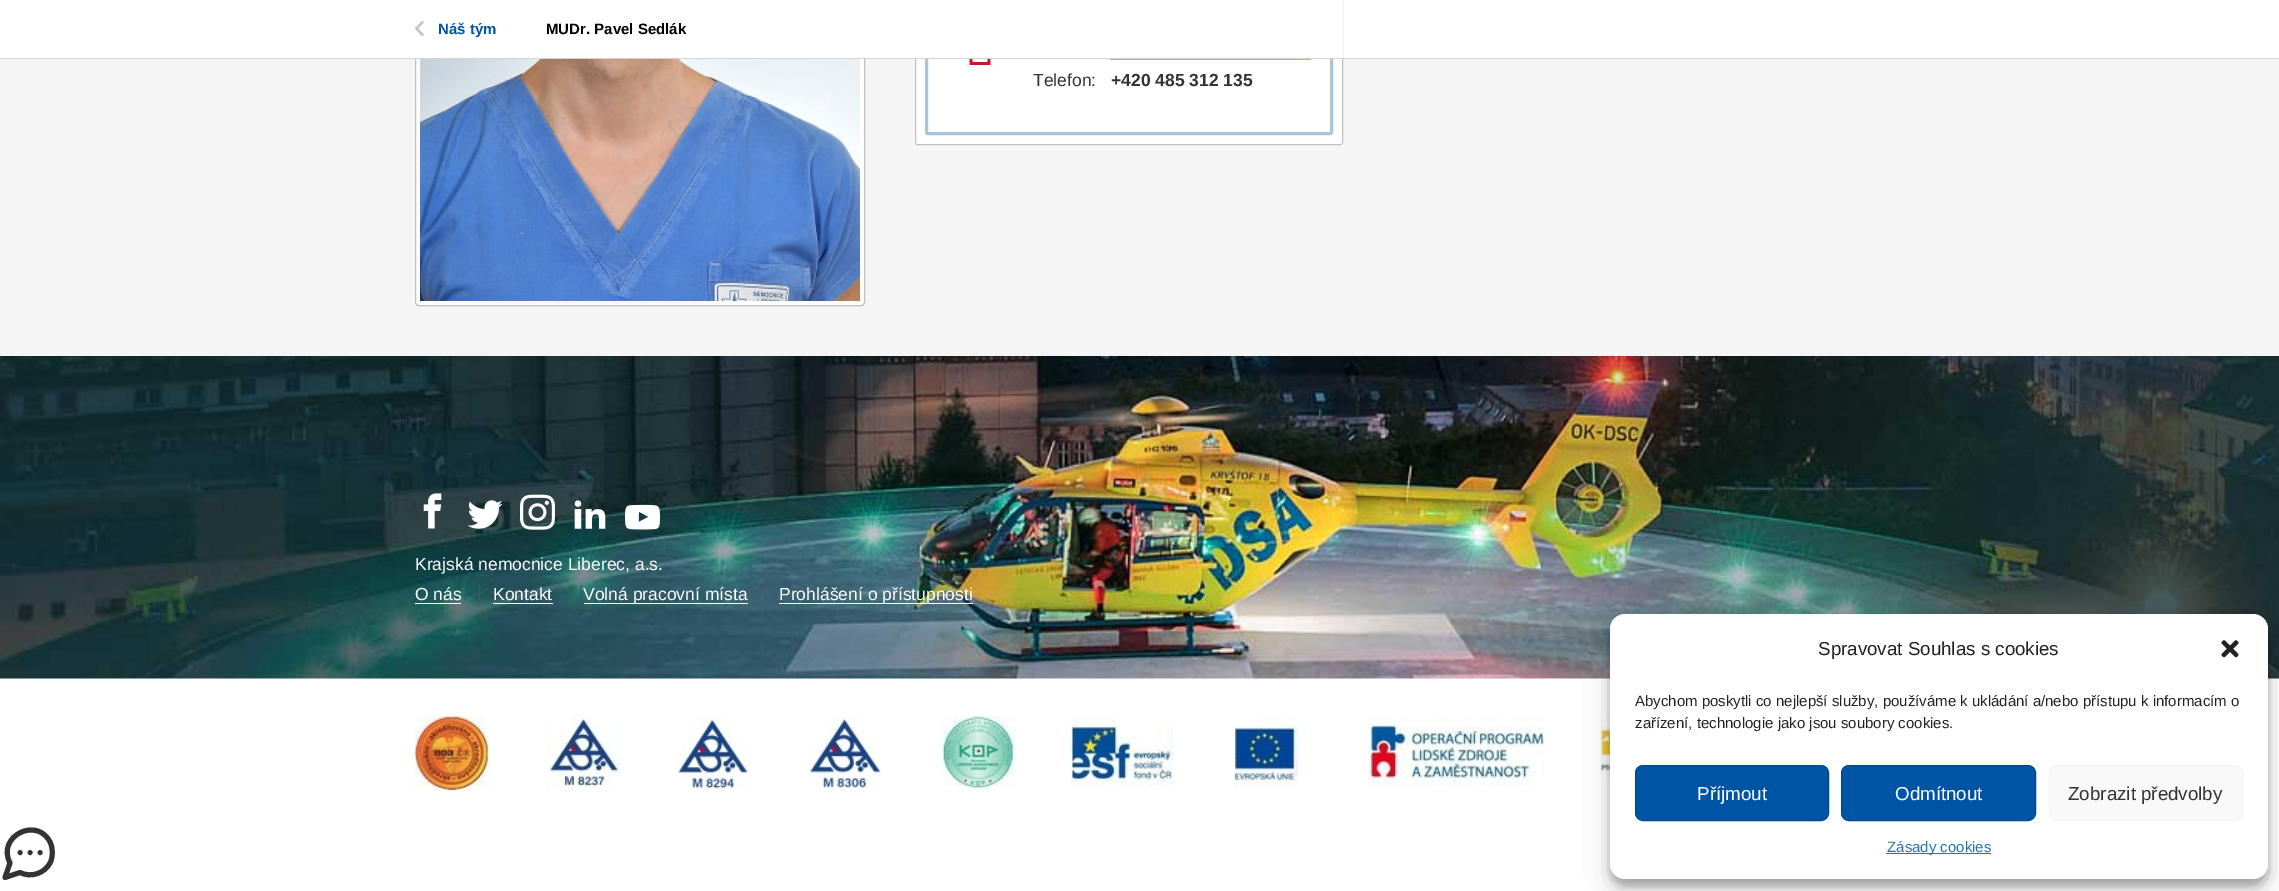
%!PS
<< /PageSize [2279 891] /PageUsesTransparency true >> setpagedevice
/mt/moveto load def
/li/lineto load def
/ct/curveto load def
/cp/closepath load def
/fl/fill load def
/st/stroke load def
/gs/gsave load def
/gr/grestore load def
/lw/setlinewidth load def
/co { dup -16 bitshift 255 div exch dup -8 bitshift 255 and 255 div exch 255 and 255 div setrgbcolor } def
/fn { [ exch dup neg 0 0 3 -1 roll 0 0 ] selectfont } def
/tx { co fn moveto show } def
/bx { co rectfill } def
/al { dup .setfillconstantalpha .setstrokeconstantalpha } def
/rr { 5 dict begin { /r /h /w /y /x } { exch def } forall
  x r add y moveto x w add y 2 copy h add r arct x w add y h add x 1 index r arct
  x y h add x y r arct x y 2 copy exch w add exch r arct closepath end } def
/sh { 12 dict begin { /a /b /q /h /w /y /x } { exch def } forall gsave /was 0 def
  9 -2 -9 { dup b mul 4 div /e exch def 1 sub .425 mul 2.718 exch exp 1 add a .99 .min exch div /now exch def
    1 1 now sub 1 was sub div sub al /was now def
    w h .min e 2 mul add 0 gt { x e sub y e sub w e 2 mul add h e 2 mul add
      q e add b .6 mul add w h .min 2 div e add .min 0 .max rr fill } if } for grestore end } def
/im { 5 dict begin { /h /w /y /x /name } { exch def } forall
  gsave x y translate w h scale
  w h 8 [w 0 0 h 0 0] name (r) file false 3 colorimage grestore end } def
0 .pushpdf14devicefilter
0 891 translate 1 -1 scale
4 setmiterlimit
0 0 2279 891 16#FFFFFF bx
0 59 2279 297 16#F5F5F5 bx
16#FFFFFF co
415.5 -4.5 449 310 3.5 rr gs fl gr
16#C0C0C0 co
st
16#FFFFFF co
915.5 -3.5 427 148 2 rr gs fl gr
16#C0C0C0 co
st
16#ABC4DD co
3 lw
926.5 -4.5 405 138 1 rr st
415 0 928 58 16#FFFFFF bx
0 58 2279 1 16#D3D3D3 bx
(media/1.raw) 415 21 9 15 im
(media/2.raw) 420 59 440 242 im
(media/3.raw) 969 59 22 6 im
1110 59 201 1 16#94B5D6 bx
(media/4.raw) 0 356 2279 323 im
(media/5.raw) 423 493 19 36 im
(media/6.raw) 467 500 36 29 im
(media/7.raw) 520 494 35 36 im
(media/8.raw) 574 500 32 29 im
(media/9.raw) 625 504 35 26 im
415 603 46 1 16#FFFFFF bx
479 585 1 18 16#455A59 bx
493 603 60 1 16#FFFFFF bx
570 585 1 18 16#455A59 bx
584 603 164 1 16#FFFFFF bx
765 585 1 18 16#455A59 bx
779 603 194 1 16#FFFFFF bx
(media/10.raw) 415 716 75 74 im
(media/11.raw) 546 716 75 74 im
(media/12.raw) 677 716 74 74 im
(media/13.raw) 809 716 74 74 im
(media/14.raw) 940 716 75 74 im
(media/15.raw) 1071 716 102 74 im
(media/16.raw) 1235 716 63 72 im
(media/17.raw) 1368 716 176 72 im
(media/18.raw) 1600 716 10 70 im
16#000000 co
1610 621 658 265 15 4 .23 sh
1610 626 658 265 15 12.5 .19 sh
16#FFFFFF co
1610 614 658 265 15 rr fl
(media/19.raw) 2221 640 18 18 im
16#0054A6 co
1635.5 765.5 193 55 7.5 rr gs fl gr
16#00478D co
1 lw
st
16#0054A6 co
1841.5 765.5 194 55 7.5 rr gs fl gr
16#00478D co
st
16#F9F9F9 co
2049.5 765.5 193 55 7.5 rr gs fl gr
16#F2F2F2 co
st
1886 853 105 1 16#1E73BE bx
16#333333 co
5 lw
1 setlinecap
1 setlinejoin
20 872.5 mt 31 878 45 873.5 50.5 862 ct 53 856.5 53 849 50.5 843 ct 38 815.5 -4 836 10 863 ct 5 877.5 li cp 20 852.5 mt 20 852.5 li 30 852.5 mt 30 852.5 li 40 852.5 mt 40 852.5 li st
(Náš tým) 438 34 /LiberationSans-Bold 15 16#0054A6 tx
(MUDr. Pavel Sedlák) 546 34 /LiberationSans-Bold 15 16#000000 tx
(Telefon:) 1033 86 /LiberationSans-Regular 17.5 16#333333 tx
(+420 485 312 135) 1111 86 /LiberationSans-Bold 17.5 16#333333 tx
(Krajská nemocnice Liberec, a.s.) 415 570 /LiberationSans-Regular 17.5 16#FFFFFF tx
(O nás) 415 600 /LiberationSans-Regular 17.5 16#FFFFFF tx
(Kontakt) 493 600 /LiberationSans-Regular 17.5 16#FFFFFF tx
(Volná pracovní místa) 583 600 /LiberationSans-Regular 17.5 16#FFFFFF tx
(Prohlášení o přístupnosti) 779 600 /LiberationSans-Regular 17.5 16#FFFFFF tx
(Spravovat Souhlas s cookies) 1818 655 /LiberationSans-Regular 18.75 16#222222 tx
(Abychom poskytli co nejlepší služby, používáme k ukládání a/nebo přístupu k informacím o) 1635 706 /LiberationSans-Regular 15 16#222222 tx
(zařízení, technologie jako jsou soubory cookies.) 1635 728 /LiberationSans-Regular 15 16#222222 tx
(Příjmout) 1697 800 /LiberationSans-Regular 18.75 16#FFFFFF tx
(Odmítnout) 1895 800 /LiberationSans-Regular 18.75 16#FFFFFF tx
(Zobrazit předvolby) 2068 800 /LiberationSans-Regular 18.75 16#333333 tx
(Zásady cookies) 1887 852 /LiberationSans-Regular 15 16#1E73BE tx
.poppdf14devicefilter showpage
